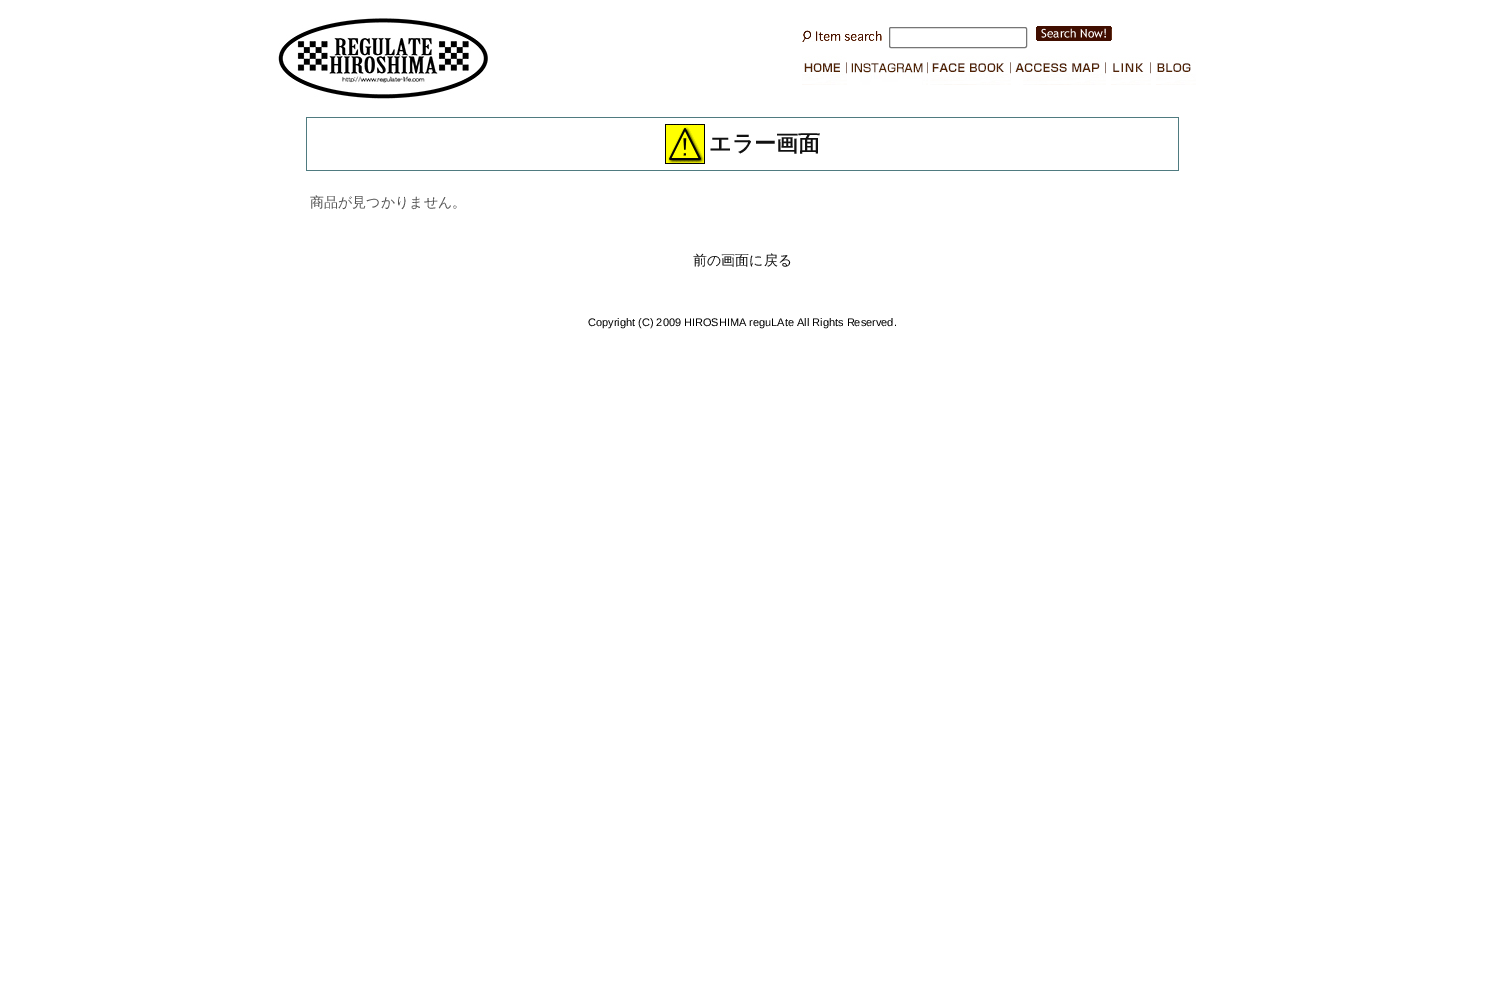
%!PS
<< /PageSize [1485 1000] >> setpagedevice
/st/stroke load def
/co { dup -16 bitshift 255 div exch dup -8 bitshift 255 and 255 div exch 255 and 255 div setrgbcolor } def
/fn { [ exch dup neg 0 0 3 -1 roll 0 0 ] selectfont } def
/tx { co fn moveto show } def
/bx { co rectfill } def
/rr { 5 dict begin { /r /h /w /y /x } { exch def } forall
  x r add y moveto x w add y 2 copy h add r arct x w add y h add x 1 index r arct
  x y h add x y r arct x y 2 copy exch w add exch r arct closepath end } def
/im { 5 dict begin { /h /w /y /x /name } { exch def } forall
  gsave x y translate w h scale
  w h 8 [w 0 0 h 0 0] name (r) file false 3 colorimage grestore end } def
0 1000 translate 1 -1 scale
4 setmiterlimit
0 0 1485 1000 16#FFFFFF bx
(media/1.raw) 278 18 210 81 im
(media/2.raw) 802 30 80 12 im
16#767676 co
889.5 27.5 137 20 1.5 rr st
(media/3.raw) 1036 26 76 15 im
(media/4.raw) 802 56 45 29 im
(media/5.raw) 851 62 77 23 im
(media/6.raw) 930 56 81 29 im
(media/7.raw) 1015 56 91 29 im
(media/8.raw) 1111 57 40 28 im
(media/9.raw) 1156 57 40 28 im
306 117 873 54 16#4F7B80 bx
307 118 871 52 16#FFFFFF bx
(media/10.raw) 665 124 40 40 im
(エラー画面) 709 151 /WenQuanYiZenHei-Bold 22 16#111111 tx
(商品が見つかりません。) 310 207 /WenQuanYiZenHei-Medium 14 16#555555 tx
(前の画面に戻る) 693 265 /WenQuanYiZenHei-Medium 14 16#111111 tx
(Copyright \(C\) 2009 HIROSHIMA reguLAte All Rights Reserved.) 588 326 /LiberationSans-Regular 11 16#000000 tx
showpage
